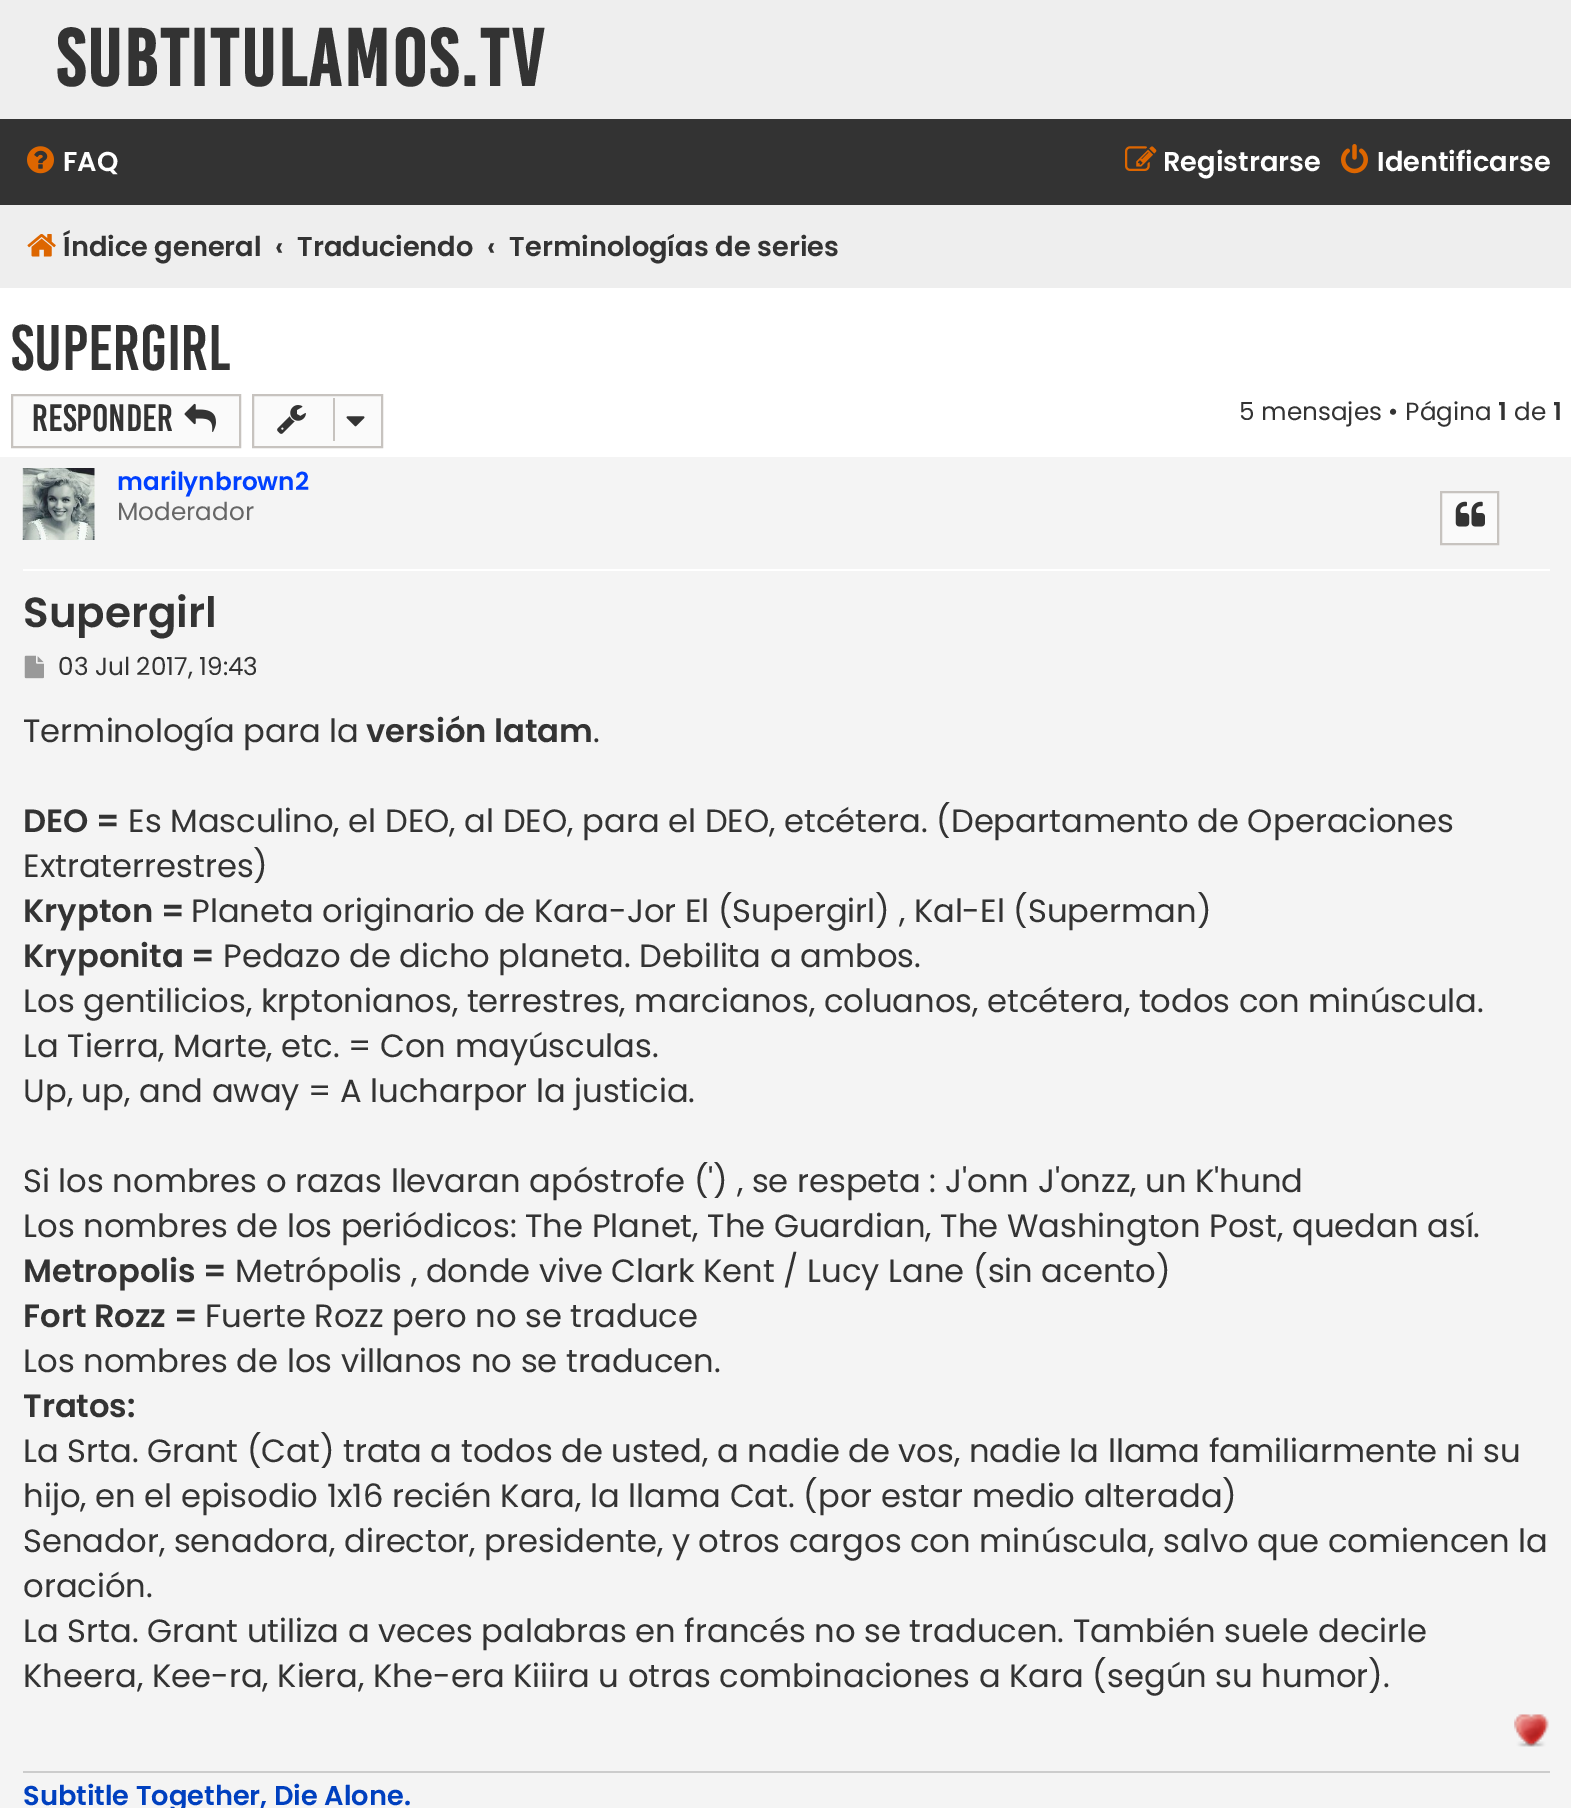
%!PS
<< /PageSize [1571 1808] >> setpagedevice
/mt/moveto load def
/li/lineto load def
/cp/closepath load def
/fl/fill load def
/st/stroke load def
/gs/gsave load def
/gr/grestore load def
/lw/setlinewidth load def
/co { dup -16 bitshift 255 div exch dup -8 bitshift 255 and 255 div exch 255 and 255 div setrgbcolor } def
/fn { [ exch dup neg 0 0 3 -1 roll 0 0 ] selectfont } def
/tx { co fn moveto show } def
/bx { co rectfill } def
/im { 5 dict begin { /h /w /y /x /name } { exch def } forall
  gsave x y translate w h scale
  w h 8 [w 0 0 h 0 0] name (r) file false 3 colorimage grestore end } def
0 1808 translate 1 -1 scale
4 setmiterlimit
0 0 1571 1808 16#FFFFFF bx
0 0 1571 119 16#EEEEEE bx
0 119 1571 86 16#333333 bx
(media/1.raw) 27 146 27 28 im
(media/2.raw) 1125 146 32 25 im
(media/3.raw) 1341 144 27 30 im
0 205 1571 83 16#EEEEEE bx
(media/4.raw) 27 234 29 23 im
16#FAFAFA co
12 395 mt 240 395 li 240 447 li 12 447 li cp gs fl gr
16#C7C3BF co
2 lw
st
(media/5.raw) 184 403 32 29 im
16#FAFAFA co
253 395 mt 382 395 li 382 447 li 253 447 li cp gs fl gr
16#C7C3BF co
st
(media/6.raw) 277 405 29 29 im
333 398 2 43 16#C7C3BF bx
(media/7.raw) 346 416 19 11 im
0 457 1571 1351 16#F4F4F4 bx
23 569 1527 2 16#FFFFFF bx
(media/8.raw) 22 468 73 72 im
16#FAFAFA co
1441 492 mt 1498 492 li 1498 544 li 1441 544 li cp gs fl gr
16#C7C3BF co
st
(media/9.raw) 1455 501 30 26 im
(media/10.raw) 24 655 20 24 im
(media/11.raw) 1514 1714 35 33 im
23 1771 1527 2 16#CCCCCC bx
/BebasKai-Bold 62 fn
16#333333 co
56 86 mt 2.25 0 (subtitulamos.tv) ashow
(FAQ) 63 171 /Poppins-SemiBold 27.25 16#FFFFFF tx
(Registrarse) 1163 171 /Poppins-SemiBold 27.25 16#FFFFFF tx
(Identificarse) 1377 171 /Poppins-SemiBold 27.25 16#FFFFFF tx
(Índice general) 63 256 /Poppins-SemiBold 27.25 16#333333 tx
(‹) 275 256 /Poppins-SemiBold 27.25 16#333333 tx
(Traduciendo) 297 256 /Poppins-SemiBold 27.25 16#333333 tx
(‹) 487 256 /Poppins-SemiBold 27.25 16#333333 tx
(Terminologías de series) 509 256 /Poppins-SemiBold 27.25 16#333333 tx
(Supergirl) 11 370 /BebasKai-Regular 49.5 16#333333 tx
(Responder) 32 431 /BebasKai-Regular 29.25 16#333333 tx
(5 mensajes • Página) 1239 420 /Poppins-Regular 24.75 16#333333 tx
(1) 1498 420 /Poppins-SemiBold 24.75 16#333333 tx
(de) 1514 420 /Poppins-Regular 24.75 16#333333 tx
(1) 1553 420 /Poppins-SemiBold 24.75 16#333333 tx
(marilynbrown2) 117 490 /Poppins-SemiBold 24.75 16#0040FF tx
(Moderador) 117 520 /Poppins-Regular 24.75 16#666666 tx
(Supergirl) 23 627 /Poppins-SemiBold 42 16#333333 tx
(03 Jul 2017, 19:43) 58 675 /Poppins-Regular 24.75 16#333333 tx
(Terminología para la) 23 742 /Poppins-Regular 32.2 16#333333 tx
(versión latam) 366 742 /Poppins-SemiBold 32.2 16#333333 tx
(.) 593 742 /Poppins-Regular 32.2 16#333333 tx
(DEO =) 23 832 /Poppins-SemiBold 32.2 16#333333 tx
(Es Masculino, el DEO, al DEO, para el DEO, etcétera. \(Departamento de Operaciones) 128 832 /Poppins-Regular 32.2 16#333333 tx
(Extraterrestres\)) 23 877 /Poppins-Regular 32.2 16#333333 tx
(Krypton =) 23 922 /Poppins-SemiBold 32.2 16#333333 tx
(Planeta originario de Kara-Jor El \(Supergirl\) , Kal-El \(Superman\)) 191 922 /Poppins-Regular 32.2 16#333333 tx
(Kryponita =) 23 967 /Poppins-SemiBold 32.2 16#333333 tx
(Pedazo de dicho planeta. Debilita a ambos.) 223 967 /Poppins-Regular 32.2 16#333333 tx
(Los gentilicios, krptonianos, terrestres, marcianos, coluanos, etcétera, todos con minúscula.) 23 1012 /Poppins-Regular 32.2 16#333333 tx
(La Tierra, Marte, etc. = Con mayúsculas.) 23 1057 /Poppins-Regular 32.2 16#333333 tx
(Up, up, and away = A lucharpor la justicia.) 23 1102 /Poppins-Regular 32.2 16#333333 tx
(Si los nombres o razas llevaran apóstrofe \('\) , se respeta : J'onn J'onzz, un K'hund) 23 1192 /Poppins-Regular 32.2 16#333333 tx
(Los nombres de los periódicos: The Planet, The Guardian, The Washington Post, quedan así.) 23 1237 /Poppins-Regular 32.2 16#333333 tx
(Metropolis =) 23 1282 /Poppins-SemiBold 32.2 16#333333 tx
(Metrópolis , donde vive Clark Kent / Lucy Lane \(sin acento\)) 235 1282 /Poppins-Regular 32.2 16#333333 tx
(Fort Rozz =) 23 1327 /Poppins-SemiBold 32.2 16#333333 tx
(Fuerte Rozz pero no se traduce) 205 1327 /Poppins-Regular 32.2 16#333333 tx
(Los nombres de los villanos no se traducen.) 23 1372 /Poppins-Regular 32.2 16#333333 tx
(Tratos:) 23 1417 /Poppins-SemiBold 32.2 16#333333 tx
(La Srta. Grant \(Cat\) trata a todos de usted, a nadie de vos, nadie la llama familiarmente ni su) 23 1462 /Poppins-Regular 32.2 16#333333 tx
(hijo, en el episodio 1x16 recién Kara, la llama Cat. \(por estar medio alterada\)) 23 1507 /Poppins-Regular 32.2 16#333333 tx
(Senador, senadora, director, presidente, y otros cargos con minúscula, salvo que comiencen la) 23 1552 /Poppins-Regular 32.2 16#333333 tx
(oración.) 23 1597 /Poppins-Regular 32.2 16#333333 tx
(La Srta. Grant utiliza a veces palabras en francés no se traducen. También suele decirle) 23 1642 /Poppins-Regular 32.2 16#333333 tx
(Kheera, Kee-ra, Kiera, Khe-era Kiiira u otras combinaciones a Kara \(según su humor\).) 23 1687 /Poppins-Regular 32.2 16#333333 tx
(Subtitle Together, Die Alone.) 23 1805 /Poppins-SemiBold 27.25 16#0040BF tx
showpage
